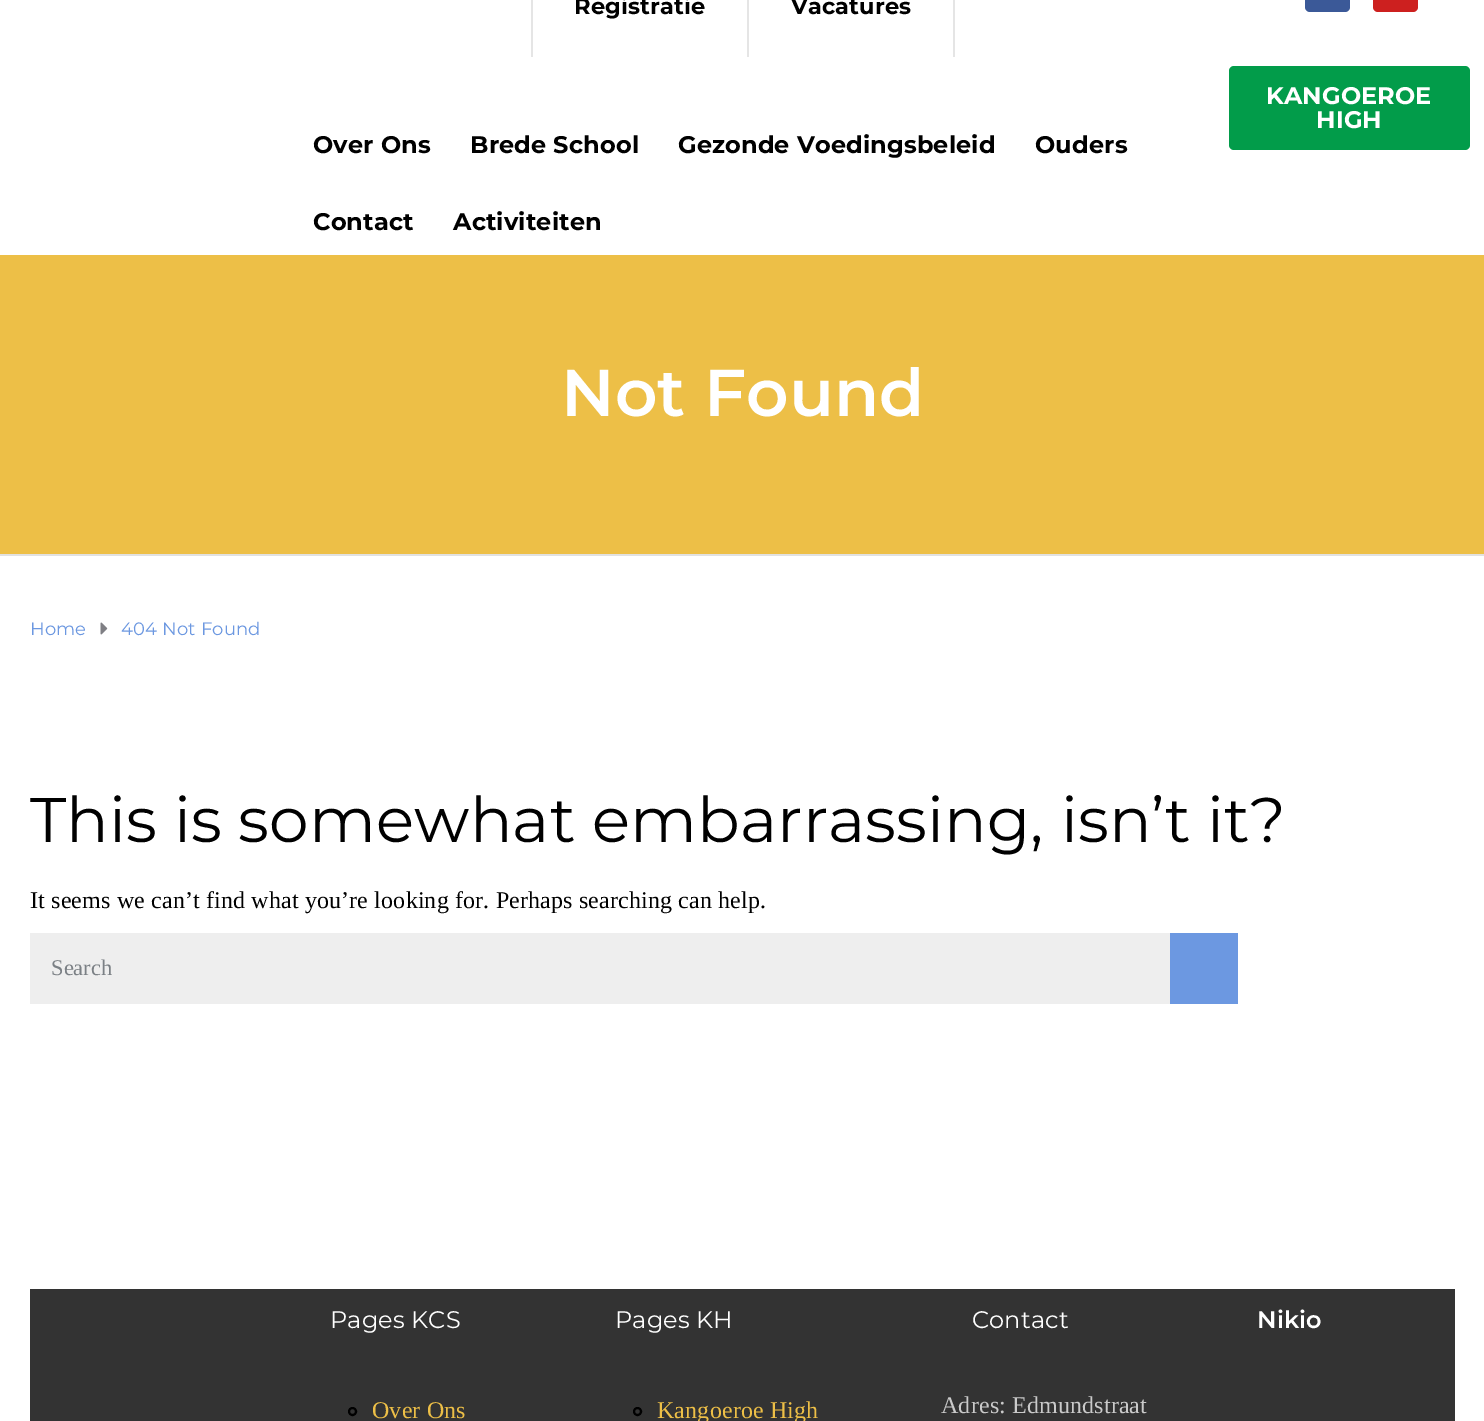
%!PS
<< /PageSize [1484 1421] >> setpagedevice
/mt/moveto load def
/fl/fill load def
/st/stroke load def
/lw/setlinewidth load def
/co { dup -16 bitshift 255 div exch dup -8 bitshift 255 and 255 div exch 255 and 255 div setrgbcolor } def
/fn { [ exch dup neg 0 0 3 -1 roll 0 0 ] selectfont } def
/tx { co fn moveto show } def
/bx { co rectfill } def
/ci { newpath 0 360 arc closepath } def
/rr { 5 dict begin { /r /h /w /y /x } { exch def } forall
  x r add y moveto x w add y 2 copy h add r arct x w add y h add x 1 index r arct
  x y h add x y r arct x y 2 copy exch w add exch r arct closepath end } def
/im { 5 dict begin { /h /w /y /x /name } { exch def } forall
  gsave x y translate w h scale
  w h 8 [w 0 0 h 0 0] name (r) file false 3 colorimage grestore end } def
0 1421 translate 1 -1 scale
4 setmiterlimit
0 0 1484 1421 16#FFFFFF bx
747 0 2 57 16#E5E5E5 bx
531 0 2 57 16#E5E5E5 bx
953 0 2 57 16#E5E5E5 bx
16#3B5998 co
1305 -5 45 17 5 rr fl
16#CD201F co
1373 -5 45 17 5 rr fl
16#029C4A co
1229 66 241 84 5 rr fl
0 255 1484 299 16#EDBF47 bx
0 554 1484 2 16#E1E1E1 bx
(media/1.raw) 100 622 8 13 im
30 933 1140 71 16#EEEEEE bx
1170 933 68 71 16#6C98E1 bx
30 1289 1425 132 16#333333 bx
16#000000 co
2 lw
352.5 1411.5 3.5 ci st
637.5 1411.5 3.5 ci st
/Montserrat-Bold 22.5 fn
574 14 mt .15 0 (Registratie) ashow
791 14 mt .15 0 (Vacatures) ashow
/Montserrat-Bold 24 fn
313 153 mt .15 0 (Over Ons) ashow
470 153 mt .15 0 (Brede School) ashow
678 153 mt .15 0 (Gezonde Voedingsbeleid) ashow
1035 153 mt .15 0 (Ouders) ashow
313 230 mt .15 0 (Contact) ashow
453 230 mt .15 0 (Activiteiten) ashow
16#FFFFFF co
1266 104 mt .15 0 (KANGOEROE) ashow
1316 128 mt .15 0 (HIGH) ashow
/Montserrat-SemiBold 66 fn
561 416 mt .15 0 (Not Found) ashow
/Montserrat-Regular 18 fn
16#6C98E1 co
30 635 mt .15 0 (Home) ashow
121 635 mt .15 0 (404 Not Found) ashow
/Montserrat-Regular 63 fn
16#000000 co
30 842 mt .15 0 (This is somewhat embarrassing, isn’t it?) ashow
/LiberationSerif-Regular 24 fn
30 908 mt .15 0 (It seems we can’t find what you’re looking for. Perhaps searching can help.) ashow
(Search) 51 975 /LiberationSerif-Regular 22.5 16#7B8085 tx
/Montserrat-Regular 24 fn
16#FFFFFF co
330 1328 mt .15 0 (Pages KCS) ashow
/LiberationSerif-Regular 24 fn
16#EDBF47 co
372 1418 mt .15 0 (Over Ons) ashow
/Montserrat-Regular 24 fn
16#FFFFFF co
615 1328 mt .15 0 (Pages KH) ashow
/LiberationSerif-Regular 24 fn
16#EDBF47 co
657 1418 mt .15 0 (Kangoeroe High) ashow
/Montserrat-Regular 24 fn
16#FFFFFF co
972 1328 mt .15 0 (Contact) ashow
/LiberationSerif-Regular 24 fn
16#CACACA co
941 1413 mt .15 0 (Adres: Edmundstraat) ashow
/Montserrat-SemiBold 24 fn
16#FFFFFF co
1257 1328 mt .15 0 (Nikio) ashow
showpage
